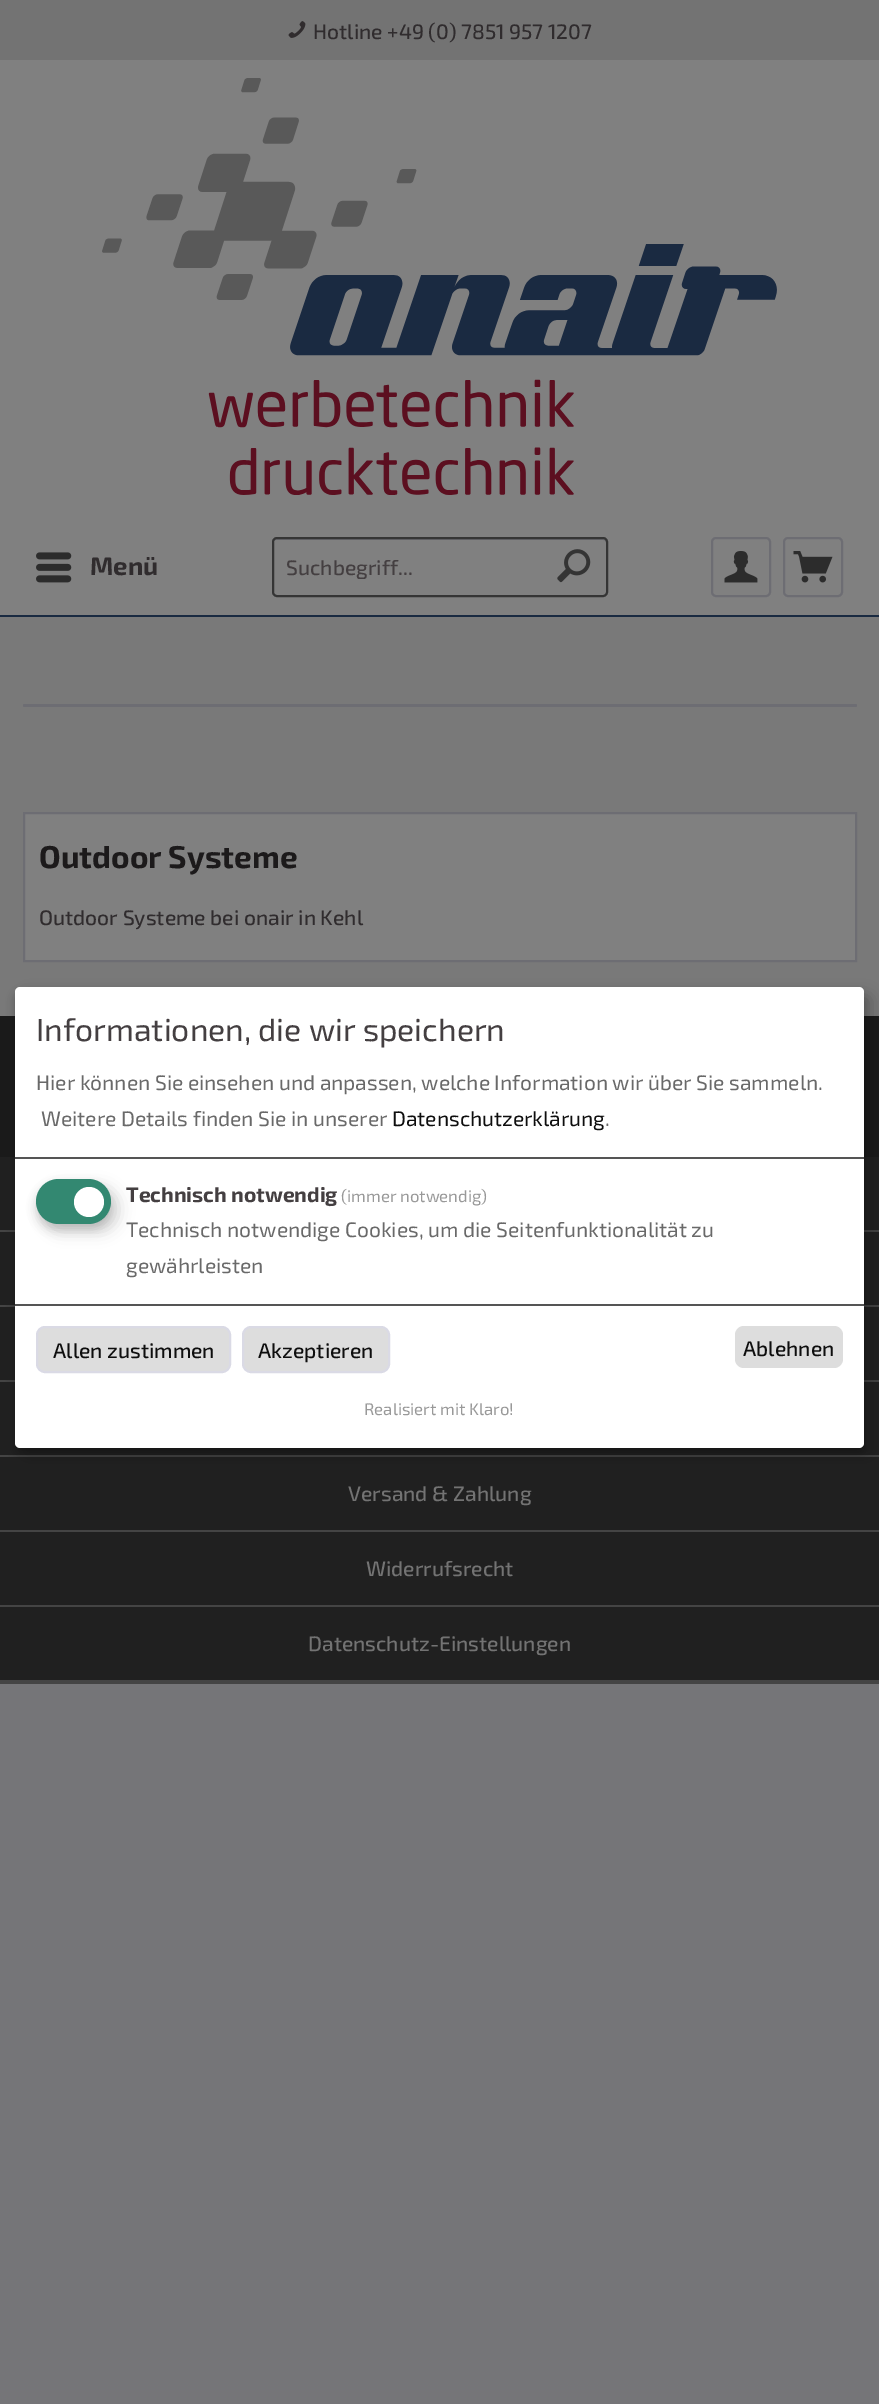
%!PS
<< /PageSize [879 2404] /PageUsesTransparency true >> setpagedevice
/mt/moveto load def
/li/lineto load def
/ct/curveto load def
/cp/closepath load def
/fl/fill load def
/st/stroke load def
/gs/gsave load def
/gr/grestore load def
/lw/setlinewidth load def
/co { dup -16 bitshift 255 div exch dup -8 bitshift 255 and 255 div exch 255 and 255 div setrgbcolor } def
/fn { [ exch dup neg 0 0 3 -1 roll 0 0 ] selectfont } def
/tx { co fn moveto show } def
/bx { co rectfill } def
/al { dup .setfillconstantalpha .setstrokeconstantalpha } def
/ci { newpath 0 360 arc closepath } def
/rr { 5 dict begin { /r /h /w /y /x } { exch def } forall
  x r add y moveto x w add y 2 copy h add r arct x w add y h add x 1 index r arct
  x y h add x y r arct x y 2 copy exch w add exch r arct closepath end } def
/sh { 12 dict begin { /a /b /q /h /w /y /x } { exch def } forall gsave /was 0 def
  9 -2 -9 { dup b mul 4 div /e exch def 1 sub .425 mul 2.718 exch exp 1 add a .99 .min exch div /now exch def
    1 1 now sub 1 was sub div sub al /was now def
    w h .min e 2 mul add 0 gt { x e sub y e sub w e 2 mul add h e 2 mul add
      q e add b .6 mul add w h .min 2 div e add .min 0 .max rr fill } if } for grestore end } def
/im { 5 dict begin { /h /w /y /x /name } { exch def } forall
  gsave x y translate w h scale
  w h 8 [w 0 0 h 0 0] name (r) file false 3 colorimage grestore end } def
0 .pushpdf14devicefilter
0 2404 translate 1 -1 scale
4 setmiterlimit
0 0 879 2404 16#757578 bx
0 617 879 399 16#797979 bx
0 60 879 555 16#808080 bx
0 615 879 2 16#192A41 bx
0 0 879 60 16#737373 bx
(media/1.raw) 288 21 18 17 im
(media/2.raw) 102 78 675 417 im
(media/3.raw) 36 552 36 31 im
16#6D6D73 co
276 540 mt 603 540 li 605 540 606 541 606 543 ct 606 541 605 539 603 539 ct 276 539 li 274 539 273 541 273 543 ct 273 541 274 540 276 540 ct cp fl
16#353535 co
2 lw
273 538 334 58 4 rr st
(media/4.raw) 557 549 34 34 im
16#6D6D73 co
712 538 58 58 4 rr st
(media/5.raw) 724 551 34 32 im
784 538 58 58 4 rr st
(media/6.raw) 793 551 40 32 im
23 704 834 3 1.5 rr fl
16#808080 co
24 813 mt 856 813 li 856 961 li 24 961 li cp gs fl gr
16#6D6D73 co
st
0 1016 879 141 16#1A1A1A bx
0 1157 879 523 16#202020 bx
0 1230 879 2 16#444444 bx
0 1680 879 4 16#444444 bx
0 1305 879 2 16#444444 bx
0 1380 879 2 16#444444 bx
0 1455 879 2 16#444444 bx
0 1530 879 2 16#444444 bx
0 1605 879 2 16#444444 bx
16#000000 co
23 995 849 460 5 7.5 .19 sh
15 993 849 461 5 4.5 .2 sh
16#FFFFFF co
15 987 849 461 5 rr fl
15 1157 849 2 16#555555 bx
16#000000 co
44 1187 75 45 22.5 7.5 .15 sh
16#333333 co
36 1185 75 45 22.5 4.5 .2 sh
16#338871 co
36 1179 75 45 22.5 rr fl
16#FFFFFF co
89 1202 15 ci fl
15 1304 849 2 16#555555 bx
16#DDDDDD co
37 1327 193 45 8 rr gs fl gr
16#DADAE5 co
st
16#DDDDDD co
243 1327 146 45 8 rr gs fl gr
16#DADAE5 co
st
16#DDDDDD co
735 1326 108 42 9 rr fl
(Hotline +49 \(0\) 7851 957 1207) 313 39 /Exo2-Medium 21 16#302C2E tx
(Menü) 90 575 /Exo2-Bold 25.5 16#302C2E tx
gs
287 554 256 25 rectclip
(Suchbegriff...) 286 575 /Exo2-Medium 21 16#443F41 tx
gr
(Outdoor Systeme) 39 868 /Exo2-Bold 31.5 16#1C1A1B tx
(Outdoor Systeme bei onair in Kehl) 39 925 /Exo2-Medium 21 16#302C2E tx
(Versand & Zahlung) 348 1501 /Exo2-Medium 21 16#737373 tx
(Widerrufsrecht) 366 1576 /Exo2-Medium 21 16#737373 tx
(Datenschutz-Einstellungen) 308 1651 /Exo2-Medium 21 16#737373 tx
(Informationen, die wir speichern) 36 1041 /Exo2-Regular 31.9 16#443F41 tx
(Hier können Sie einsehen und anpassen, welche Information wir über Sie sammeln.) 36 1090 /Exo2-Regular 21 16#696969 tx
(Weitere Details finden Sie in unserer) 41 1126 /Exo2-Regular 21 16#696969 tx
(Datenschutzerklärung) 392 1126 /Exo2-Regular 21 16#0E0E0E tx
(.) 605 1126 /Exo2-Regular 21 16#696969 tx
(Technisch notwendig) 126 1202 /Exo2-Bold 21 16#443F41 tx
(\(immer notwendig\)) 341 1202 /Exo2-Regular 16.75 16#999999 tx
(Technisch notwendige Cookies, um die Seitenfunktionalität zu) 126 1237 /Exo2-Regular 21 16#696969 tx
(gewährleisten) 126 1273 /Exo2-Regular 21 16#696969 tx
(Allen zustimmen) 53 1358 /Exo2-Medium 21 16#0E0E0E tx
(Akzeptieren) 258 1358 /Exo2-Medium 21 16#0E0E0E tx
(Ablehnen) 743 1356 /Exo2-Medium 21 16#0E0E0E tx
(Realisiert mit Klaro!) 364 1415 /Exo2-Regular 16.75 16#999999 tx
.poppdf14devicefilter showpage
